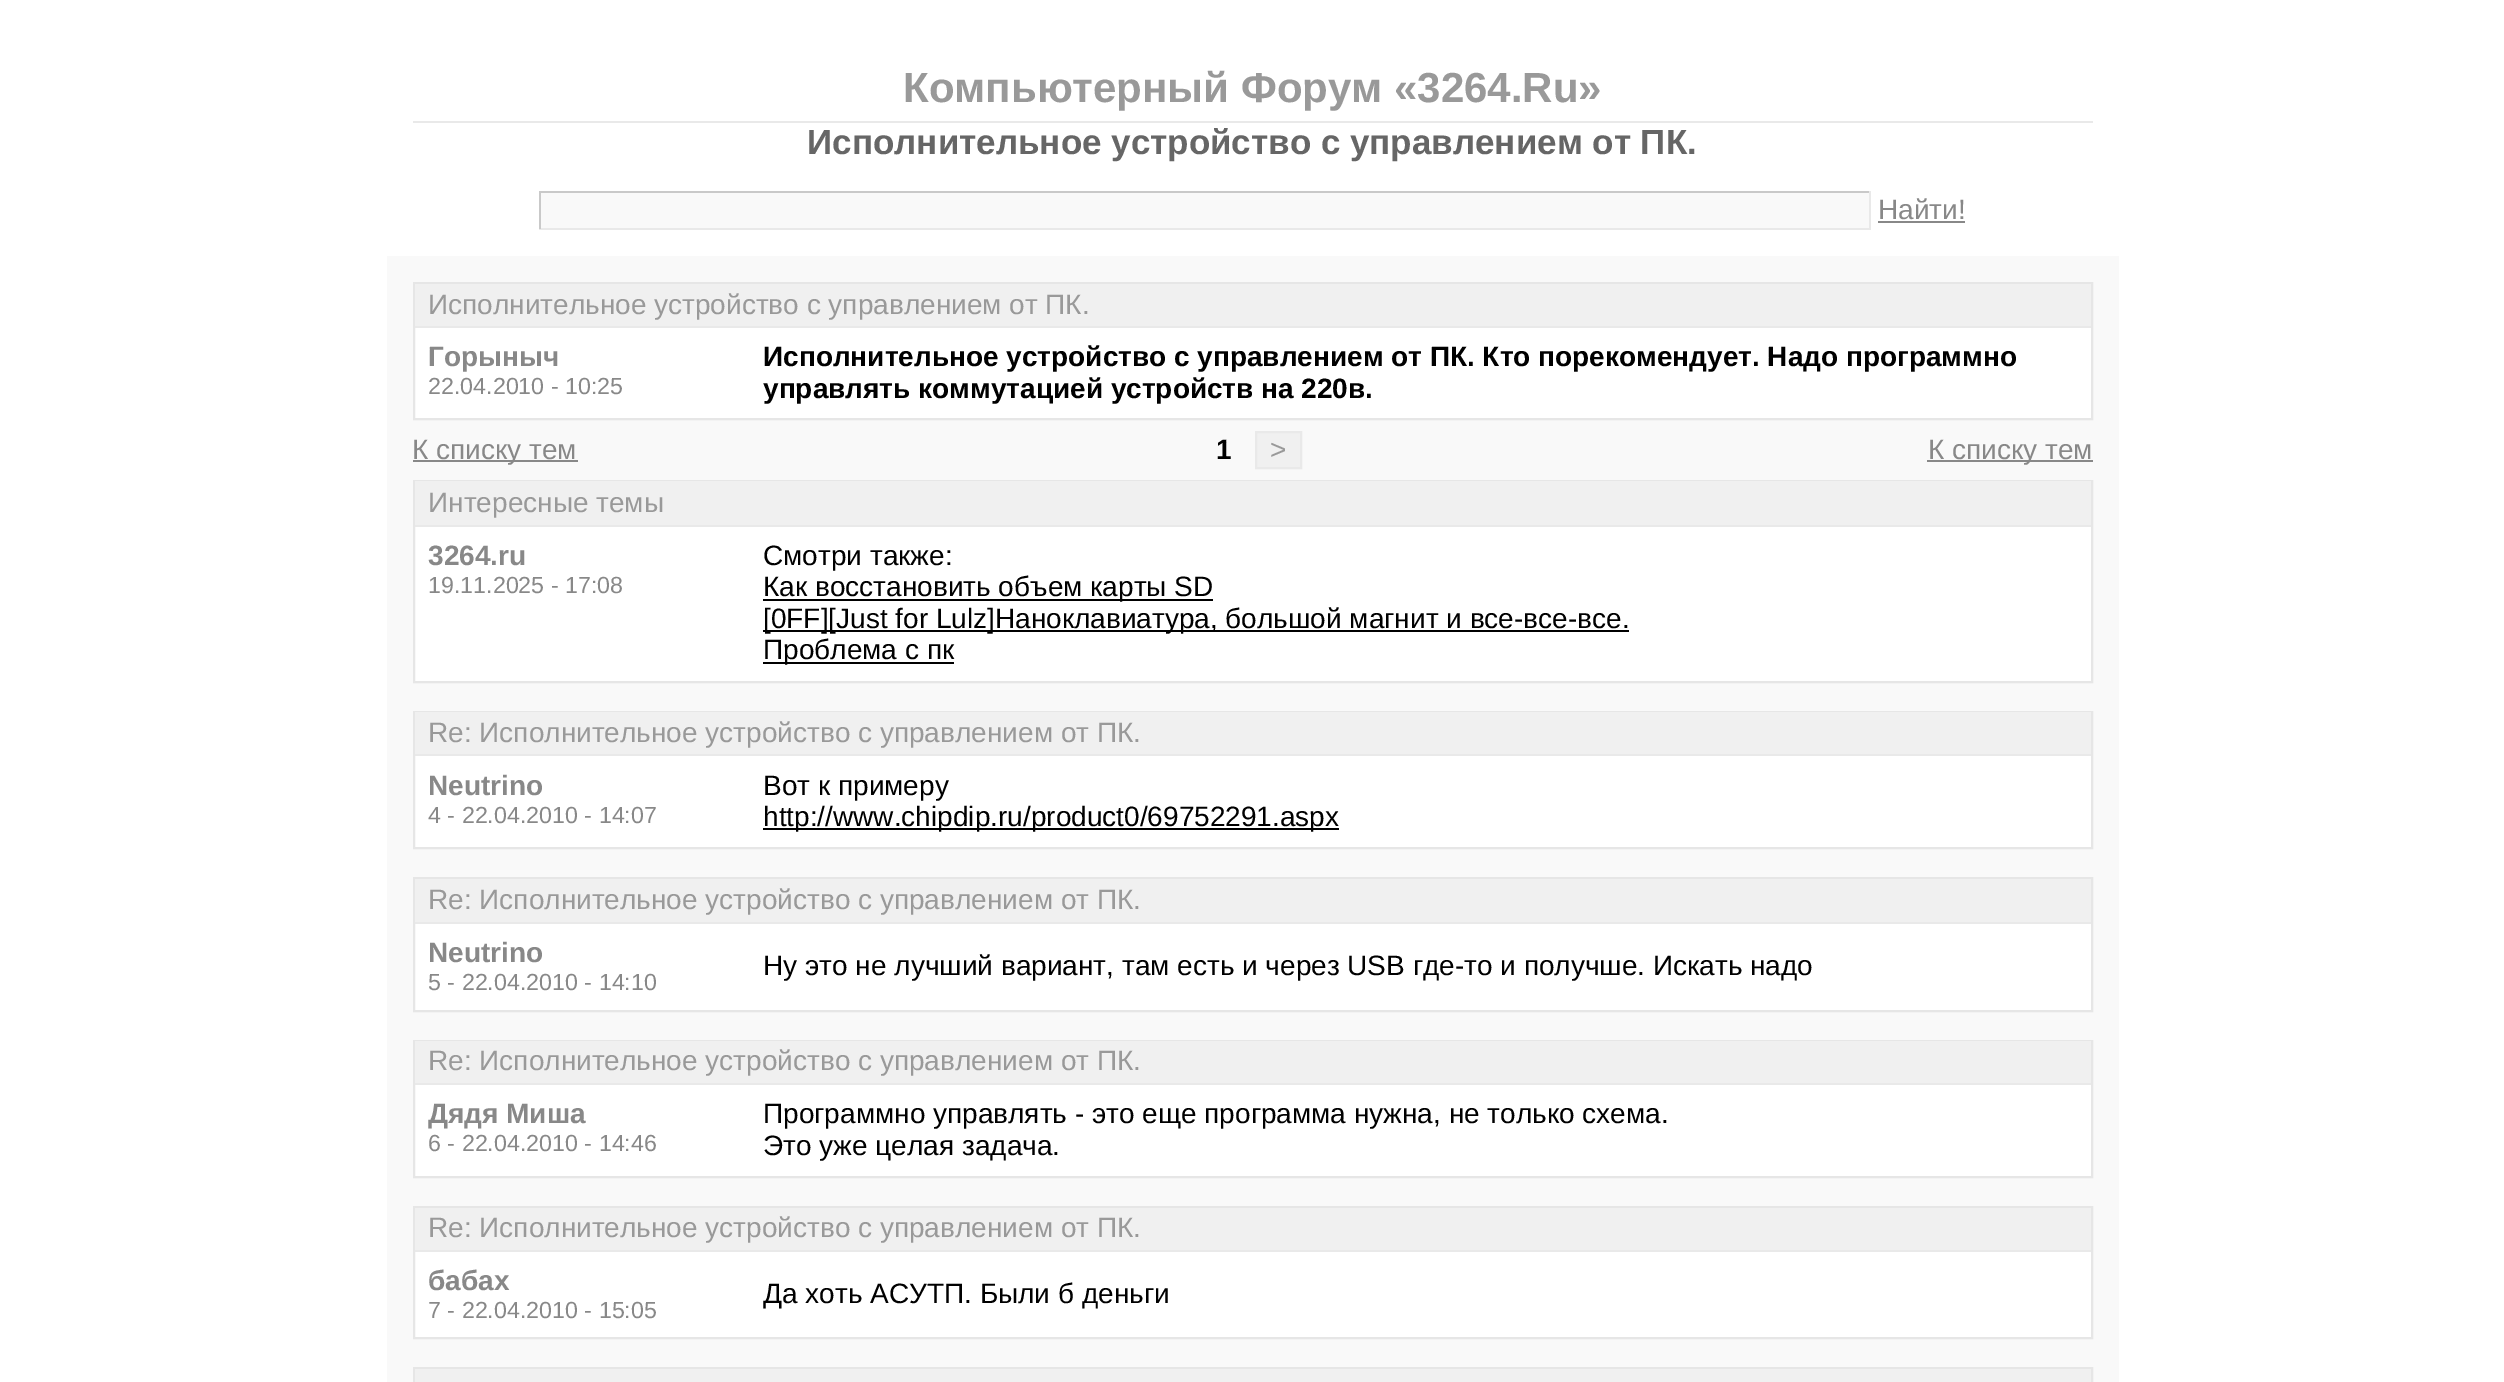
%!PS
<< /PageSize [2504 1382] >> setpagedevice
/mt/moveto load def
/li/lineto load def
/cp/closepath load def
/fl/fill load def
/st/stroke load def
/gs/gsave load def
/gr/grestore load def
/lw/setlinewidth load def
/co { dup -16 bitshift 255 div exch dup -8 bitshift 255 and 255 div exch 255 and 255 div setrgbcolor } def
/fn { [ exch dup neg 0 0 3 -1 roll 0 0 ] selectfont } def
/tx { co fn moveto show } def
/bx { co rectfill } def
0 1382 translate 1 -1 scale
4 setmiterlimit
0 0 2504 1382 16#FFFFFF bx
413 121 1680 2 16#E9E9E9 bx
541 193 1328 35 16#F9F9F9 bx
539 191 1332 2 16#C9C9C9 bx
1869 191 2 38 16#E9E9E9 bx
539 228 1332 2 16#E9E9E9 bx
539 191 2 38 16#C9C9C9 bx
1878 221 87 2 16#888888 bx
387 256 1732 1126 16#F9F9F9 bx
415 328 1676 90 16#FFFFFF bx
16#E6E6E6 co
2 lw
414 283 1678 136 rectstroke
415 284 1676 42 16#F0F0F0 bx
415 326 1676 2 16#E9E9E9 bx
413 460 165 2 16#888888 bx
16#F0F0F0 co
1256 432 mt 1301 432 li 1301 468 li 1256 468 li cp gs fl gr
16#E9E9E9 co
st
1927 460 166 2 16#888888 bx
415 527 1676 154 16#FFFFFF bx
16#E6E6E6 co
414 481 1678 201 rectstroke
415 481 1676 44 16#F0F0F0 bx
415 525 1676 2 16#E9E9E9 bx
763 599 450 2 16#000000 bx
763 630 866 2 16#000000 bx
763 662 191 2 16#000000 bx
415 756 1676 91 16#FFFFFF bx
16#E6E6E6 co
414 712 1678 136 rectstroke
415 712 1676 42 16#F0F0F0 bx
415 754 1676 2 16#E9E9E9 bx
763 828 576 2 16#000000 bx
415 924 1676 86 16#FFFFFF bx
16#E6E6E6 co
414 878 1678 133 rectstroke
415 879 1676 43 16#F0F0F0 bx
415 922 1676 2 16#E9E9E9 bx
415 1085 1676 91 16#FFFFFF bx
16#E6E6E6 co
414 1041 1678 136 rectstroke
415 1041 1676 42 16#F0F0F0 bx
415 1083 1676 2 16#E9E9E9 bx
415 1252 1676 85 16#FFFFFF bx
16#E6E6E6 co
414 1207 1678 131 rectstroke
415 1208 1676 42 16#F0F0F0 bx
415 1250 1676 2 16#E9E9E9 bx
16#E6E6E6 co
414 1368 1678 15 rectstroke
415 1369 1676 13 16#F0F0F0 bx
(Компьютерный Форум «3264.Ru») 903 102 /LiberationSans-Bold 42 16#999999 tx
(Исполнительное устройство с управлением от ПК.) 807 154 /LiberationSans-Bold 35 16#666666 tx
(Найти!) 1878 219 /LiberationSans-Regular 28 16#888888 tx
(Исполнительное устройство с управлением от ПК.) 428 314 /LiberationSans-Regular 28 16#999999 tx
(Горыныч) 428 366 /LiberationSans-Bold 28 16#888888 tx
(22.04.2010 - 10:25) 428 394 /LiberationSans-Regular 23.25 16#888888 tx
(Исполнительное устройство с управлением от ПК. Кто порекомендует. Надо программно) 763 366 /LiberationSans-Bold 28 16#000000 tx
(управлять коммутацией устройств на 220в.) 763 398 /LiberationSans-Bold 28 16#000000 tx
(К списку тем) 412 459 /LiberationSans-Regular 28 16#888888 tx
(1) 1216 459 /LiberationSans-Bold 28 16#000000 tx
(>) 1270 459 /LiberationSans-Regular 28 16#999999 tx
(К списку тем) 1928 459 /LiberationSans-Regular 28 16#888888 tx
(Интересные темы) 428 512 /LiberationSans-Regular 28 16#999999 tx
(3264.ru) 428 565 /LiberationSans-Bold 28 16#888888 tx
(19.11.2025 - 17:08) 428 593 /LiberationSans-Regular 23.25 16#888888 tx
(Смотри также:) 763 565 /LiberationSans-Regular 28 16#000000 tx
(Как восстановить объем карты SD) 763 596 /LiberationSans-Regular 28 16#000000 tx
([0FF][Just for Lulz]Наноклавиатура, большой магнит и все-все-все.) 763 628 /LiberationSans-Regular 28 16#000000 tx
(Проблема с пк) 763 659 /LiberationSans-Regular 28 16#000000 tx
(Re: Исполнительное устройство с управлением от ПК.) 428 742 /LiberationSans-Regular 28 16#999999 tx
(Neutrino) 428 795 /LiberationSans-Bold 28 16#888888 tx
(4 - 22.04.2010 - 14:07) 428 823 /LiberationSans-Regular 23.25 16#888888 tx
(Вот к примеру) 763 795 /LiberationSans-Regular 28 16#000000 tx
(http://www.chipdip.ru/product0/69752291.aspx) 763 826 /LiberationSans-Regular 28 16#000000 tx
(Re: Исполнительное устройство с управлением от ПК.) 428 909 /LiberationSans-Regular 28 16#999999 tx
(Neutrino) 428 962 /LiberationSans-Bold 28 16#888888 tx
(5 - 22.04.2010 - 14:10) 428 990 /LiberationSans-Regular 23.25 16#888888 tx
(Ну это не лучший вариант, там есть и через USB где-то и получше. Искать надо) 763 975 /LiberationSans-Regular 28 16#000000 tx
(Re: Исполнительное устройство с управлением от ПК.) 428 1070 /LiberationSans-Regular 28 16#999999 tx
(Дядя Миша) 428 1123 /LiberationSans-Bold 28 16#888888 tx
(6 - 22.04.2010 - 14:46) 428 1151 /LiberationSans-Regular 23.25 16#888888 tx
(Программно управлять - это еще программа нужна, не только схема.) 763 1123 /LiberationSans-Regular 28 16#000000 tx
(Это уже целая задача.) 763 1155 /LiberationSans-Regular 28 16#000000 tx
(Re: Исполнительное устройство с управлением от ПК.) 428 1237 /LiberationSans-Regular 28 16#999999 tx
(бабах) 428 1290 /LiberationSans-Bold 28 16#888888 tx
(7 - 22.04.2010 - 15:05) 428 1318 /LiberationSans-Regular 23.25 16#888888 tx
(Да хоть AСУТП. Были б деньги) 763 1303 /LiberationSans-Regular 28 16#000000 tx
showpage
